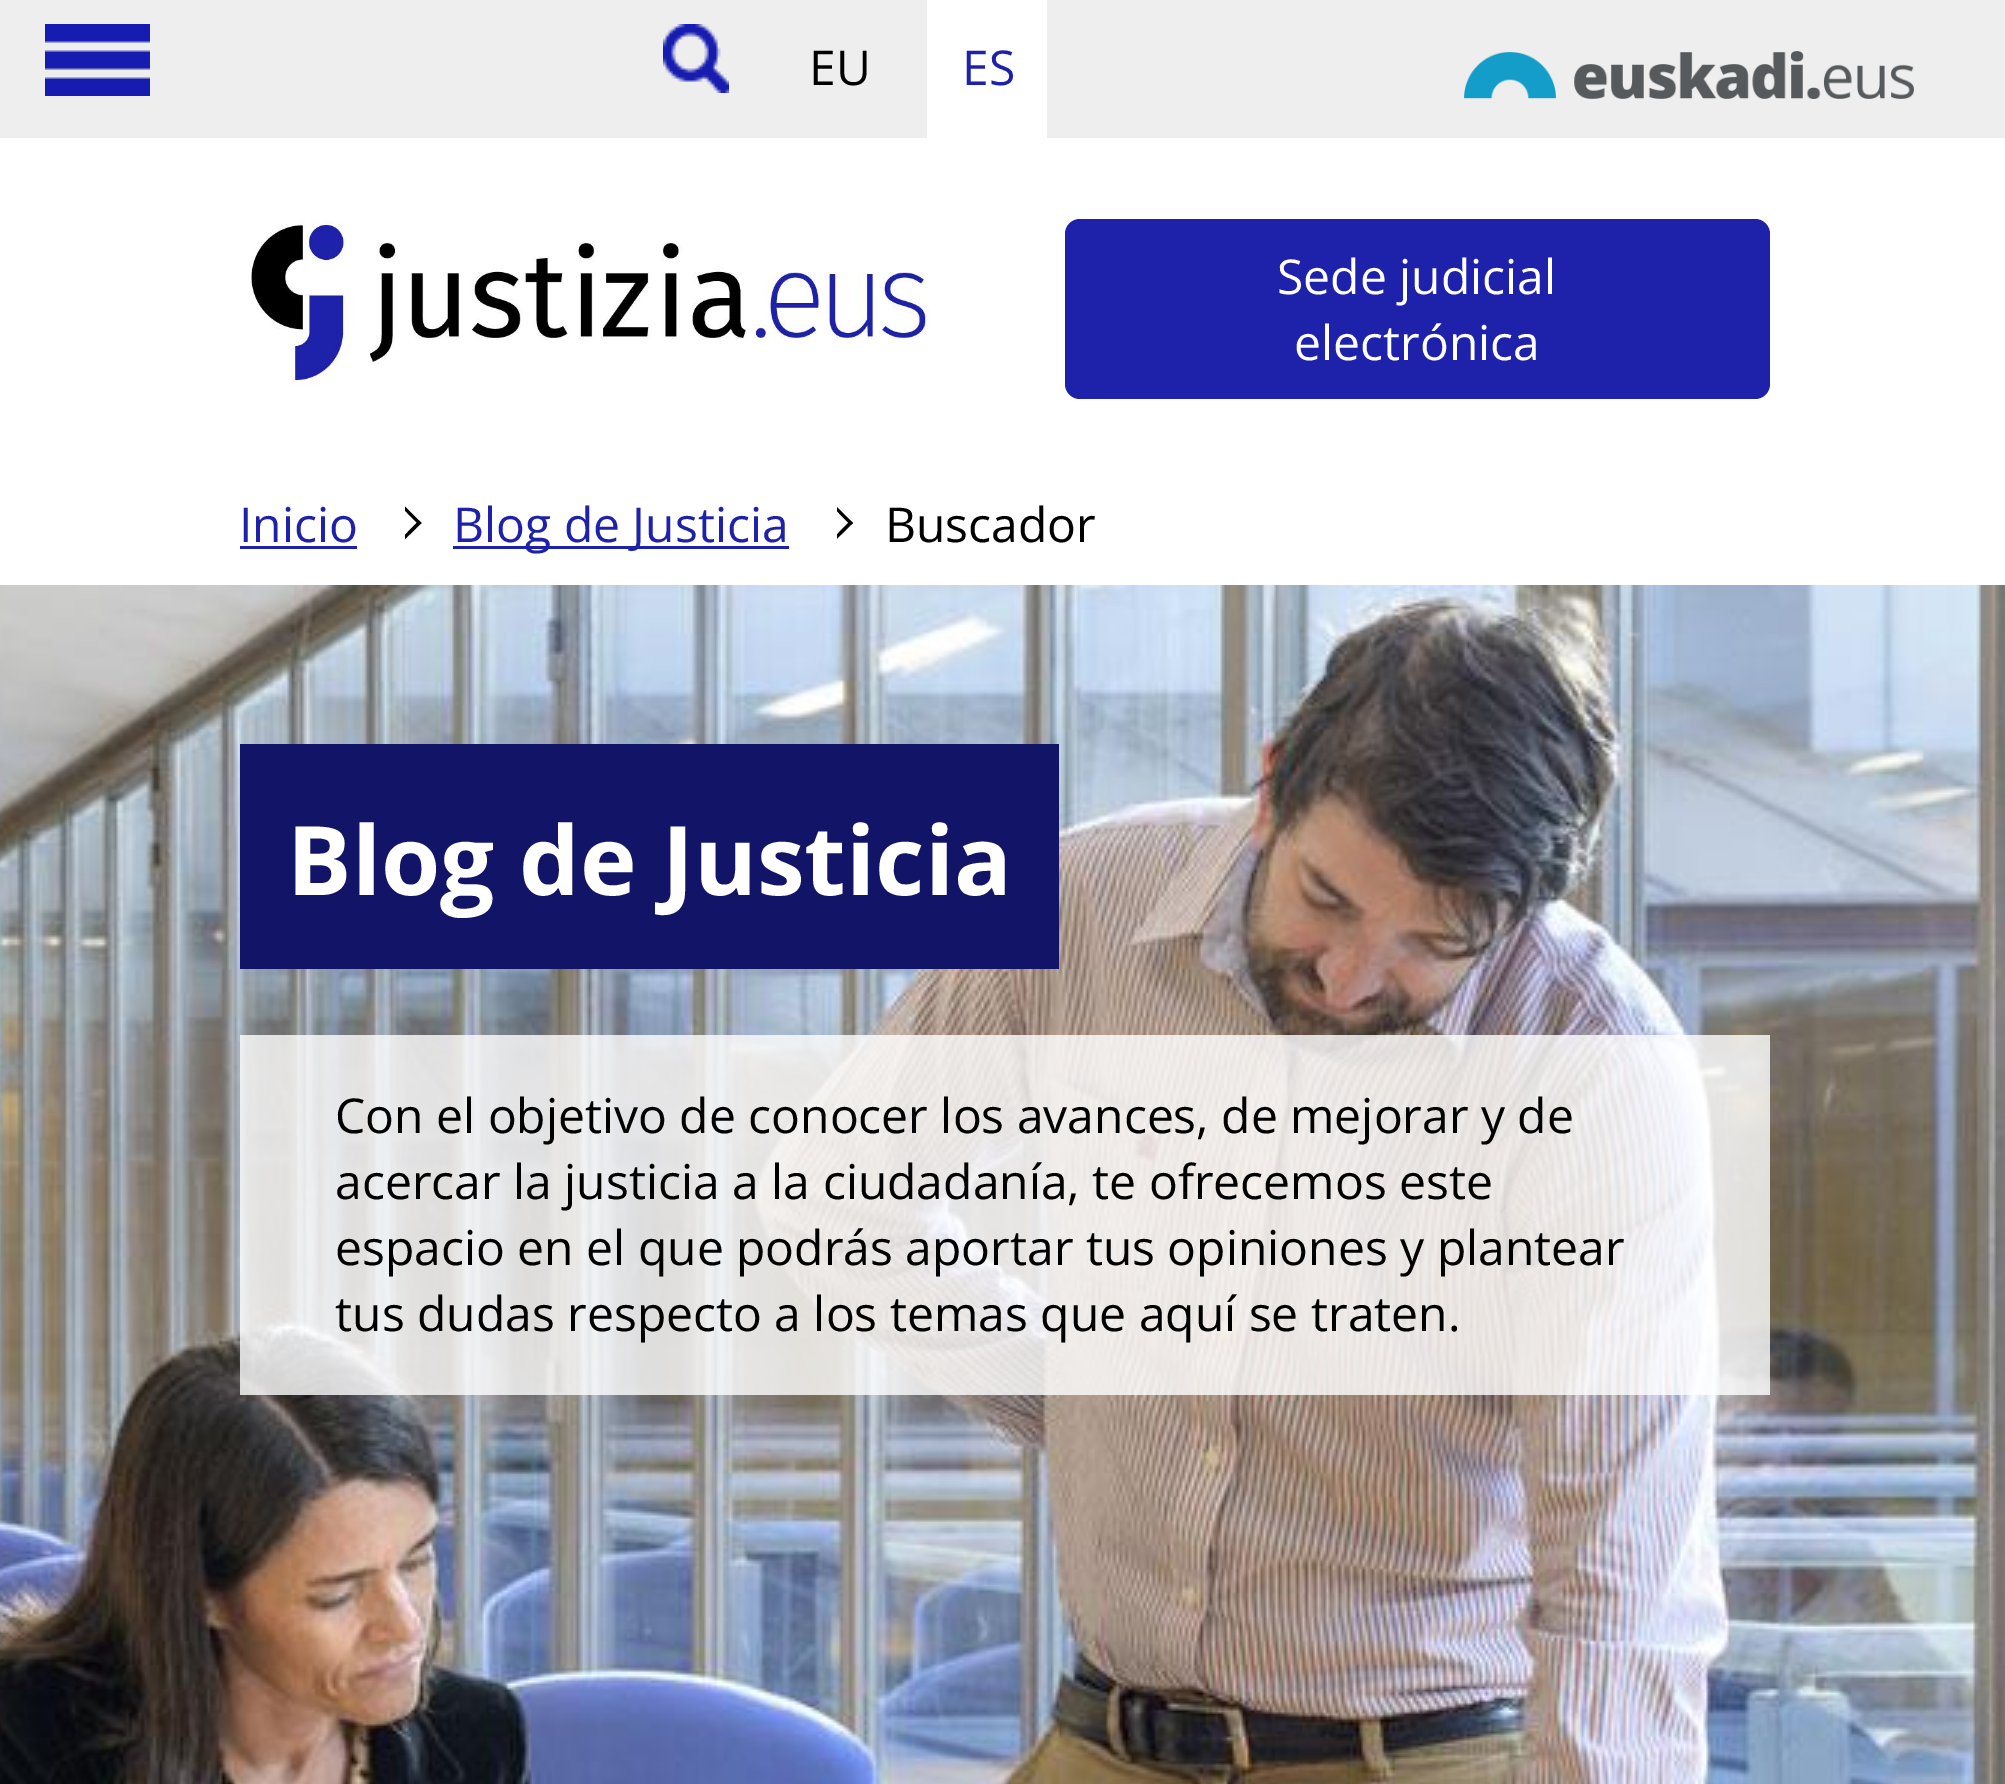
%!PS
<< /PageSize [2005 1784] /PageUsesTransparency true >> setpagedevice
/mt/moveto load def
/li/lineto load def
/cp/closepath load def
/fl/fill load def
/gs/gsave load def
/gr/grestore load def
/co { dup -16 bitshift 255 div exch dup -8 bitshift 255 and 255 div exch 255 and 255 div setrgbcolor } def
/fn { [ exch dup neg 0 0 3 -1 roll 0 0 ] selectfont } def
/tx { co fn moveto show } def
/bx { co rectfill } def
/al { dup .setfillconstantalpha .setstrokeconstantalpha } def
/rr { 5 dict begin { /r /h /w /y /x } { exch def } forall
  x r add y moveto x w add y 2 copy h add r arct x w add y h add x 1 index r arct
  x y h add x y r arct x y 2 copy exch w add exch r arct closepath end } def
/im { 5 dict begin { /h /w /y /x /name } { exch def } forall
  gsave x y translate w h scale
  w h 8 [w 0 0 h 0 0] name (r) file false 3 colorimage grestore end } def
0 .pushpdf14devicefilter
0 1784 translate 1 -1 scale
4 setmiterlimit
0 0 2005 1784 16#FFFFFF bx
0 0 2005 138 16#EEEEEE bx
(media/1.raw) 45 24 105 72 im
(media/2.raw) 663 24 66 69 im
927 0 120 138 16#FFFFFF bx
(media/3.raw) 1464 51 450 48 im
(media/4.raw) 250 220 680 166 im
16#1E22AA co
1065 219 705 180 15 rr fl
240 546 117 3 16#1E22AA bx
gs
405 492 432 66 rectclip
16#000000 co
396 501.5 mt 398 499.5 li 421.5 523 li 419 525 li cp fl
396 544 mt 419 520.5 li 421.5 523 li 398 546 li cp fl
gr
453 546 336 3 16#1E22AA bx
gs
837 492 306 66 rectclip
16#000000 co
827.5 501.5 mt 829.5 499.5 li 853 523 li 850.5 525 li cp fl
827.5 544 mt 850.5 520.5 li 853 523 li 829.5 546 li cp fl
gr
(media/5.raw) 0 585 2005 1199 im
240 744 819 225 16#121467 bx
0.8 al
240 1035 1530 360 16#FFFFFF bx
1 al
(EU) 809 85 /OpenSans-Regular 48 16#000000 tx
(ES) 962 85 /OpenSans-Regular 48 16#1E22AA tx
(Sede judicial) 1277 294 /OpenSans-Regular 48 16#FFFFFF tx
(electrónica) 1294 360 /OpenSans-Regular 48 16#FFFFFF tx
(Inicio) 239 542 /OpenSans-Regular 48 16#1E22AA tx
(Blog de Justicia) 453 542 /OpenSans-Regular 48 16#1E22AA tx
(Buscador) 885 542 /OpenSans-Regular 48 16#000000 tx
(Blog de Justicia) 287 895 /OpenSans-Bold 96 16#FFFFFF tx
(Con el objetivo de conocer los avances, de mejorar y de) 335 1133 /OpenSans-Regular 48 16#000000 tx
(acercar la justicia a la ciudadanía, te ofrecemos este) 335 1199 /OpenSans-Regular 48 16#000000 tx
(espacio en el que podrás aportar tus opiniones y plantear) 335 1265 /OpenSans-Regular 48 16#000000 tx
(tus dudas respecto a los temas que aquí se traten.) 335 1331 /OpenSans-Regular 48 16#000000 tx
.poppdf14devicefilter showpage
